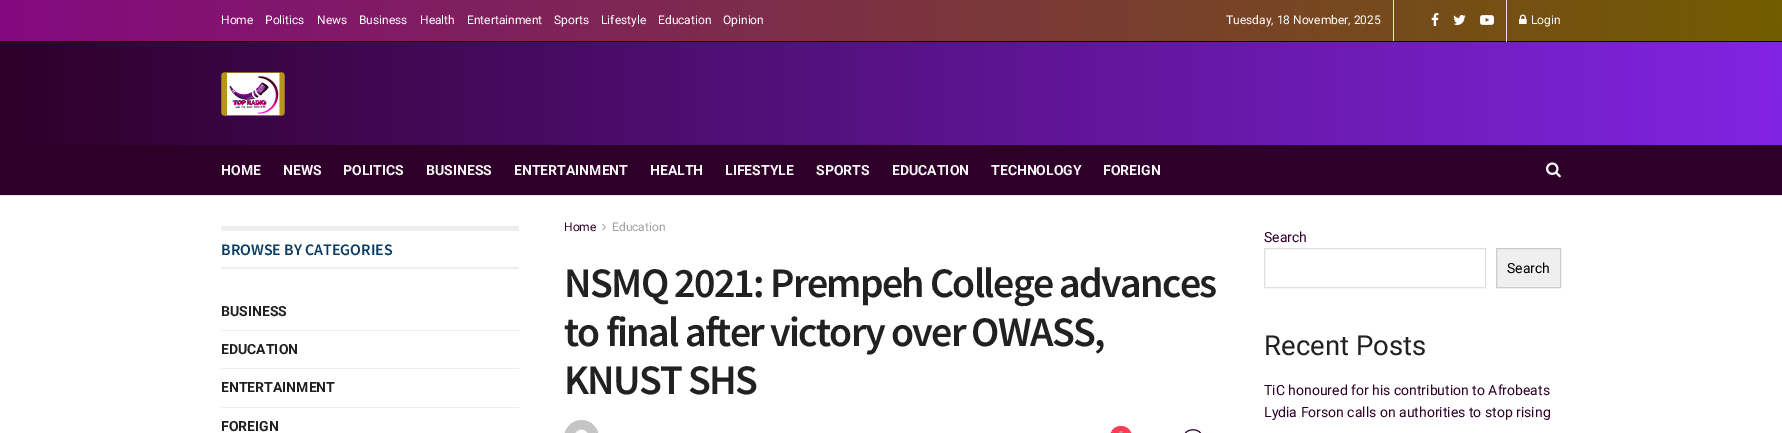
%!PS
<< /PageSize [1782 433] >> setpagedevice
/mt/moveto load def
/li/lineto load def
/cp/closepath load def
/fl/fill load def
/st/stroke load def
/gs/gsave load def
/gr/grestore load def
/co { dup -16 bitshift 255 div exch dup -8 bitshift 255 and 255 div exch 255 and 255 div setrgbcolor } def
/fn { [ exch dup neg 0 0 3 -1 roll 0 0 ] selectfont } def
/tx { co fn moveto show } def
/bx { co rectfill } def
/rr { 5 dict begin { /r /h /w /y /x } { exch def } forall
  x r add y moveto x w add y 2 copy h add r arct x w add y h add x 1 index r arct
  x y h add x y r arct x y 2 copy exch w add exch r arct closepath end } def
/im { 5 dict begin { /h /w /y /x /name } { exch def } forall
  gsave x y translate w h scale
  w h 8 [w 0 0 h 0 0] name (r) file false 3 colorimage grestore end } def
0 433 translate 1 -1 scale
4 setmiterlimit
0 0 1782 433 16#FFFFFF bx
gs 0 0 mt 1782 0 li 1782 41 li 0 41 li cp clip newpath
<< /ShadingType 2 /ColorSpace /DeviceRGB /Coords [0 21 1782 20] /Extend [true true] /Function << /FunctionType 2 /Domain [0 1] /C0 [.522 .035 .506] /C1 [.447 .365 0] /N 1 >> >> shfill gr
0 41 1782 1 16#000000 bx
1393 0 1 41 16#E0E0E0 bx
1506 0 1 42 16#E0E0E0 bx
(media/1.raw) 1431 13 8 13 im
(media/2.raw) 1453 15 13 10 im
(media/3.raw) 1480 15 14 10 im
(media/4.raw) 1519 14 8 10 im
gs 0 42 mt 1782 42 li 1782 145 li 0 145 li cp clip newpath
<< /ShadingType 2 /ColorSpace /DeviceRGB /Coords [0 94 1782 93] /Extend [true true] /Function << /FunctionType 2 /Domain [0 1] /C0 [.18 0 .161] /C1 [.51 .141 .89] /N 1 >> >> shfill gr
(media/5.raw) 221 72 64 44 im
0 145 1782 50 16#2E0029 bx
0 195 1782 1 16#E8E8E8 bx
(media/6.raw) 1546 162 15 16 im
221 226 298 5 16#EEEEEE bx
221 267 298 2 16#EEEEEE bx
221 330 298 1 16#EEEEEE bx
221 368 298 1 16#EEEEEE bx
221 407 298 1 16#EEEEEE bx
(media/7.raw) 602 223 4 8 im
(media/8.raw) 564 420 35 13 im
16#F93D53 co
1110 426 22 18 11 rr fl
(media/9.raw) 1119 431 4 2 im
(media/10.raw) 1184 429 18 4 im
16#E0E0E0 co
1264.5 248.5 221 39 rectstroke
16#EFEFEF co
1496.5 248.5 mt 1560.5 248.5 li 1560.5 287.5 li 1496.5 287.5 li cp gs fl gr
16#CCCCCC co
st
(Home) 221 24 /Roboto-Regular 12 16#FFFFFF tx
(Politics) 265 24 /Roboto-Regular 12 16#FFFFFF tx
(News) 317 24 /Roboto-Regular 12 16#FFFFFF tx
(Business) 359 24 /Roboto-Regular 12 16#FFFFFF tx
(Health) 420 24 /Roboto-Regular 12 16#FFFFFF tx
(Entertainment) 467 24 /Roboto-Regular 12 16#FFFFFF tx
(Sports) 554 24 /Roboto-Regular 12 16#FFFFFF tx
(Lifestyle) 601 24 /Roboto-Regular 12 16#FFFFFF tx
(Education) 658 24 /Roboto-Regular 12 16#FFFFFF tx
(Opinion) 723 24 /Roboto-Regular 12 16#FFFFFF tx
(Tuesday, 18 November, 2025) 1226 24 /Roboto-Regular 12 16#FFFFFF tx
(Login) 1531 24 /Roboto-Regular 12 16#FFFFFF tx
(HOME) 221 175 /Roboto-Bold 14 16#F5F5F5 tx
(NEWS) 283 175 /Roboto-Bold 14 16#F5F5F5 tx
(POLITICS) 343 175 /Roboto-Bold 14 16#F5F5F5 tx
(BUSINESS) 426 175 /Roboto-Bold 14 16#F5F5F5 tx
(ENTERTAINMENT) 514 175 /Roboto-Bold 14 16#F5F5F5 tx
(HEALTH) 650 175 /Roboto-Bold 14 16#F5F5F5 tx
(LIFESTYLE) 725 175 /Roboto-Bold 14 16#F5F5F5 tx
(SPORTS) 816 175 /Roboto-Bold 14 16#F5F5F5 tx
(EDUCATION) 892 175 /Roboto-Bold 14 16#F5F5F5 tx
(TECHNOLOGY) 991 175 /Roboto-Bold 14 16#F5F5F5 tx
(FOREIGN) 1103 175 /Roboto-Bold 14 16#F5F5F5 tx
(BROWSE BY CATEGORIES) 221 255 /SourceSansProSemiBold-SemiBold 16 16#0A3D61 tx
(BUSINESS) 221 316 /Roboto-Bold 14 16#212121 tx
(EDUCATION) 221 354 /Roboto-Bold 14 16#212121 tx
(ENTERTAINMENT) 221 392 /Roboto-Bold 14 16#212121 tx
(FOREIGN) 221 431 /Roboto-Bold 14 16#212121 tx
(Home) 564 231 /Roboto-Regular 12 16#2E0029 tx
(Education) 612 231 /Roboto-Regular 12 16#A0A0A0 tx
/SourceSansProSemiBold-SemiBold 42 fn
16#212121 co
564 297 mt -1.7 0 (NSMQ 2021: Prempeh College advances) ashow
564 346 mt -1.7 0 (to final after victory over OWASS,) ashow
564 394 mt -1.7 0 (KNUST SHS) ashow
(Search) 1264 242 /Roboto-Regular 14 16#2E0029 tx
(Search) 1507 273 /Roboto-Regular 14 16#000000 tx
(Recent Posts) 1264 355 /Roboto-Regular 27.5 16#212121 tx
(TiC honoured for his contribution to Afrobeats) 1264 395 /Roboto-Regular 14 16#2E0029 tx
(Lydia Forson calls on authorities to stop rising) 1264 417 /Roboto-Regular 14 16#2E0029 tx
showpage
